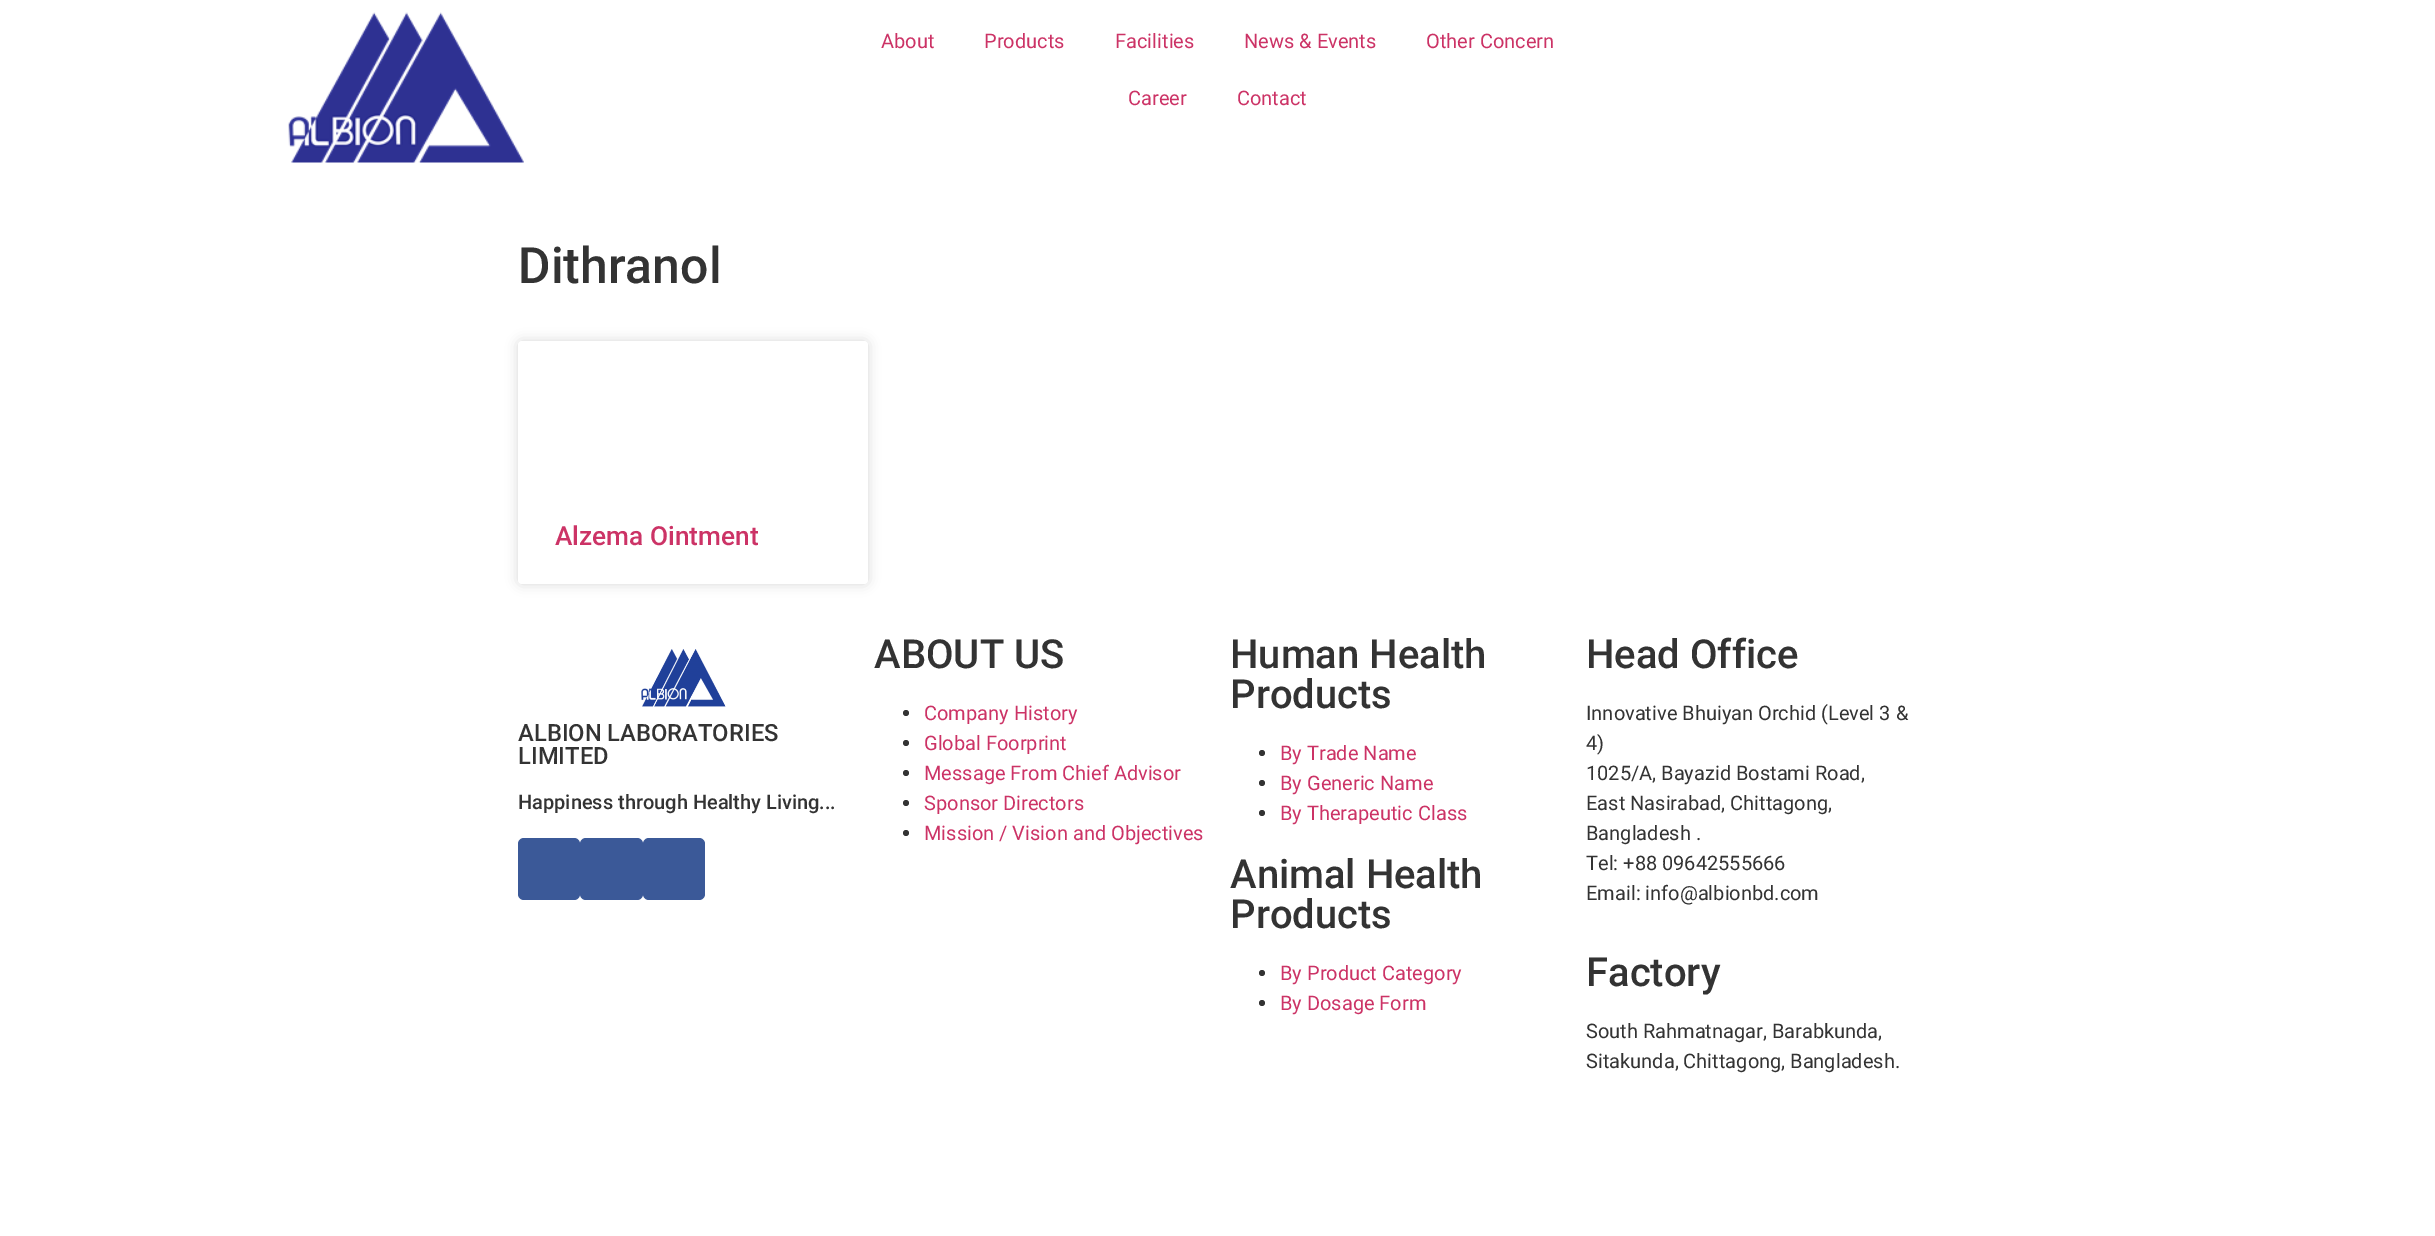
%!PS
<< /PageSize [2435 1236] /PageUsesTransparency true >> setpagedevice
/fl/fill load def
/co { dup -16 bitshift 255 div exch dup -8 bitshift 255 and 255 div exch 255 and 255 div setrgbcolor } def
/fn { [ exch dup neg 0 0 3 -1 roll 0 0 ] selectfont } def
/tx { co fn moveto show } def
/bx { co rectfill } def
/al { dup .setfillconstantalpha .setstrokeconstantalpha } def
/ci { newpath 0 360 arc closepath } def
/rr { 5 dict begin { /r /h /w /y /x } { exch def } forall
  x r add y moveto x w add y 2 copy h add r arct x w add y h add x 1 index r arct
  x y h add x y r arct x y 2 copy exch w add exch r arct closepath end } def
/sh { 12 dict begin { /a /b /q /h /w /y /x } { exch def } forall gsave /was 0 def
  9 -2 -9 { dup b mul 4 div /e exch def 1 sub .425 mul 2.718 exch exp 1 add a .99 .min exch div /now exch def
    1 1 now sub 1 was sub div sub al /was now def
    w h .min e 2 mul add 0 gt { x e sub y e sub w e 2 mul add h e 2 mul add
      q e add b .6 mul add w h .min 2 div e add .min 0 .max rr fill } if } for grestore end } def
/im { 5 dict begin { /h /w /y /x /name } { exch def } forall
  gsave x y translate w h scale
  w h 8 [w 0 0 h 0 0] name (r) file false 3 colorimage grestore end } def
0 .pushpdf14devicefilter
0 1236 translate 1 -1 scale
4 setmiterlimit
0 0 2435 1236 16#FFFFFF bx
(media/1.raw) 288 12 236 151 im
16#000000 co
518 341 350 243 4 6 .15 sh
16#FFFFFF co
518 341 350 243 4 rr fl
(media/2.raw) 641 649 85 58 im
16#3B5998 co
518 838 62 62 6 rr fl
580 838 63 62 6 rr fl
643 838 62 62 6 rr fl
16#333333 co
906 713 3 ci fl
906 743 3 ci fl
906 773 3 ci fl
906 803 3 ci fl
906 833 3 ci fl
1262 753 3 ci fl
1262 783 3 ci fl
1262 813 3 ci fl
1262 973 3 ci fl
1262 1003 3 ci fl
(About) 881 48 /Roboto-Regular 20 16#CC3366 tx
(Products) 984 48 /Roboto-Regular 20 16#CC3366 tx
(Facilities) 1115 48 /Roboto-Regular 20 16#CC3366 tx
(News & Events) 1244 48 /Roboto-Regular 20 16#CC3366 tx
(Other Concern) 1426 48 /Roboto-Regular 20 16#CC3366 tx
(Career) 1128 105 /Roboto-Regular 20 16#CC3366 tx
(Contact) 1237 105 /Roboto-Regular 20 16#CC3366 tx
(Dithranol) 518 283 /Roboto-Medium 50 16#333333 tx
(Alzema Ointment) 555 545 /Roboto-Medium 26.25 16#CC3366 tx
(ALBION LABORATORIES) 518 741 /Roboto-Medium 23.75 16#333333 tx
(LIMITED) 518 764 /Roboto-Medium 23.75 16#333333 tx
(Happiness through Healthy Living...) 518 809 /Roboto-Medium 20 16#333333 tx
(ABOUT US) 874 668 /Roboto-Medium 40 16#333333 tx
(Company History) 924 720 /Roboto-Regular 20 16#CC3366 tx
(Global Foorprint) 924 750 /Roboto-Regular 20 16#CC3366 tx
(Message From Chief Advisor) 924 780 /Roboto-Regular 20 16#CC3366 tx
(Sponsor Directors) 924 810 /Roboto-Regular 20 16#CC3366 tx
(Mission / Vision and Objectives) 924 840 /Roboto-Regular 20 16#CC3366 tx
(Human Health) 1230 668 /Roboto-Medium 40 16#333333 tx
(Products) 1230 708 /Roboto-Medium 40 16#333333 tx
(By Trade Name) 1280 760 /Roboto-Regular 20 16#CC3366 tx
(By Generic Name) 1280 790 /Roboto-Regular 20 16#CC3366 tx
(By Therapeutic Class) 1280 820 /Roboto-Regular 20 16#CC3366 tx
(Animal Health) 1230 888 /Roboto-Medium 40 16#333333 tx
(Products) 1230 928 /Roboto-Medium 40 16#333333 tx
(By Product Category) 1280 980 /Roboto-Regular 20 16#CC3366 tx
(By Dosage Form) 1280 1010 /Roboto-Regular 20 16#CC3366 tx
(Head Office) 1586 668 /Roboto-Medium 40 16#333333 tx
(Innovative Bhuiyan Orchid \(Level 3 &) 1586 720 /Roboto-Regular 20 16#333333 tx
(4\)) 1586 750 /Roboto-Regular 20 16#333333 tx
(1025/A, Bayazid Bostami Road,) 1586 780 /Roboto-Regular 20 16#333333 tx
(East Nasirabad, Chittagong,) 1586 810 /Roboto-Regular 20 16#333333 tx
(Bangladesh .) 1586 840 /Roboto-Regular 20 16#333333 tx
(Tel: +88 09642555666) 1586 870 /Roboto-Regular 20 16#333333 tx
(Email: info@albionbd.com) 1586 900 /Roboto-Regular 20 16#333333 tx
(Factory) 1586 986 /Roboto-Medium 40 16#333333 tx
(South Rahmatnagar, Barabkunda,) 1586 1038 /Roboto-Regular 20 16#333333 tx
(Sitakunda, Chittagong, Bangladesh.) 1586 1068 /Roboto-Regular 20 16#333333 tx
.poppdf14devicefilter showpage
